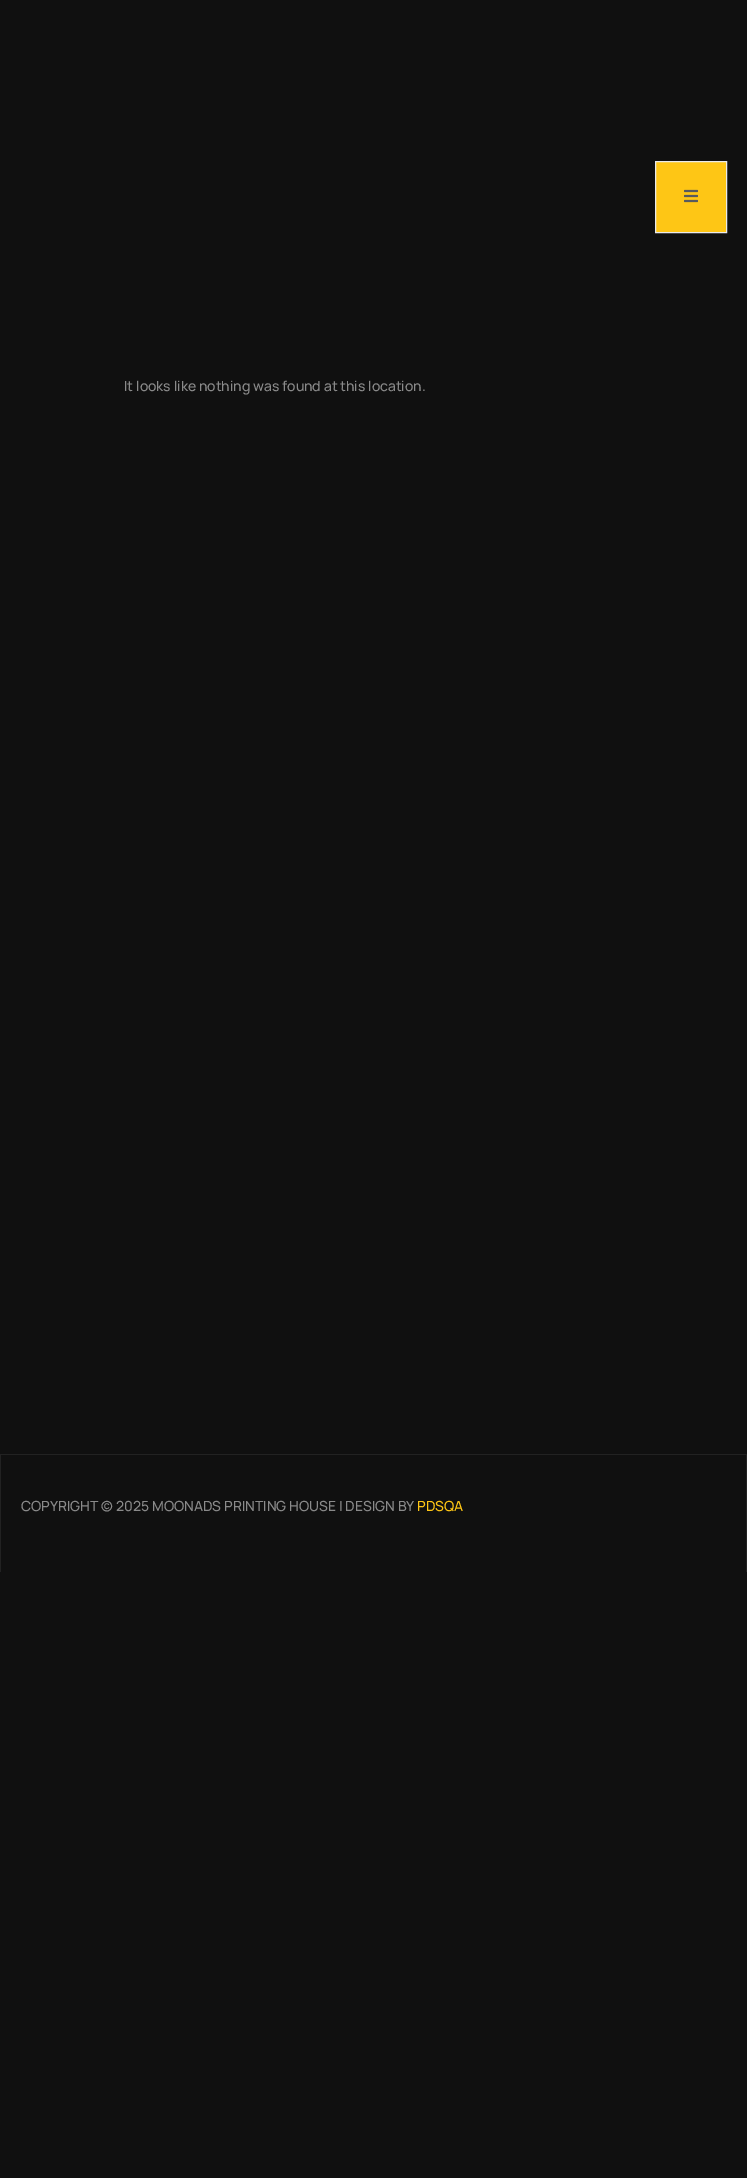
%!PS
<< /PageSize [747 2178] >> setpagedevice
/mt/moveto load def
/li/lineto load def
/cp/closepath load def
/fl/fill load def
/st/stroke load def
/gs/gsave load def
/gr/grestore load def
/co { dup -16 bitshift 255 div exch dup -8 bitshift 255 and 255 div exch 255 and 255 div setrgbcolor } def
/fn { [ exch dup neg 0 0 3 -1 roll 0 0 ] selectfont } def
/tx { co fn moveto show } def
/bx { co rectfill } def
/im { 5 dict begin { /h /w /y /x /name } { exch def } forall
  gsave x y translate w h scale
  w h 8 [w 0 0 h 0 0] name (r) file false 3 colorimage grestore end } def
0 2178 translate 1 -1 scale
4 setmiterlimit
0 0 747 2178 16#101010 bx
16#FEC615 co
655.5 161.5 mt 726.5 161.5 li 726.5 232.5 li 655.5 232.5 li cp gs fl gr
16#EAEAEB co
st
(media/1.raw) 684 189 14 14 im
0 1454 747 1 16#222222 bx
746 1455 1 117 16#222222 bx
0 1455 1 117 16#222222 bx
(It looks like nothing was found at this location.) 124 391 /Manrope-Medium 14 16#8A8A8A tx
(COPYRIGHT © 2025 MOONADS PRINTING HOUSE | DESIGN BY) 21 1511 /Manrope-Medium 14 16#8A8A8A tx
(PDSQA) 417 1511 /Manrope-Medium 14 16#FEC615 tx
showpage
